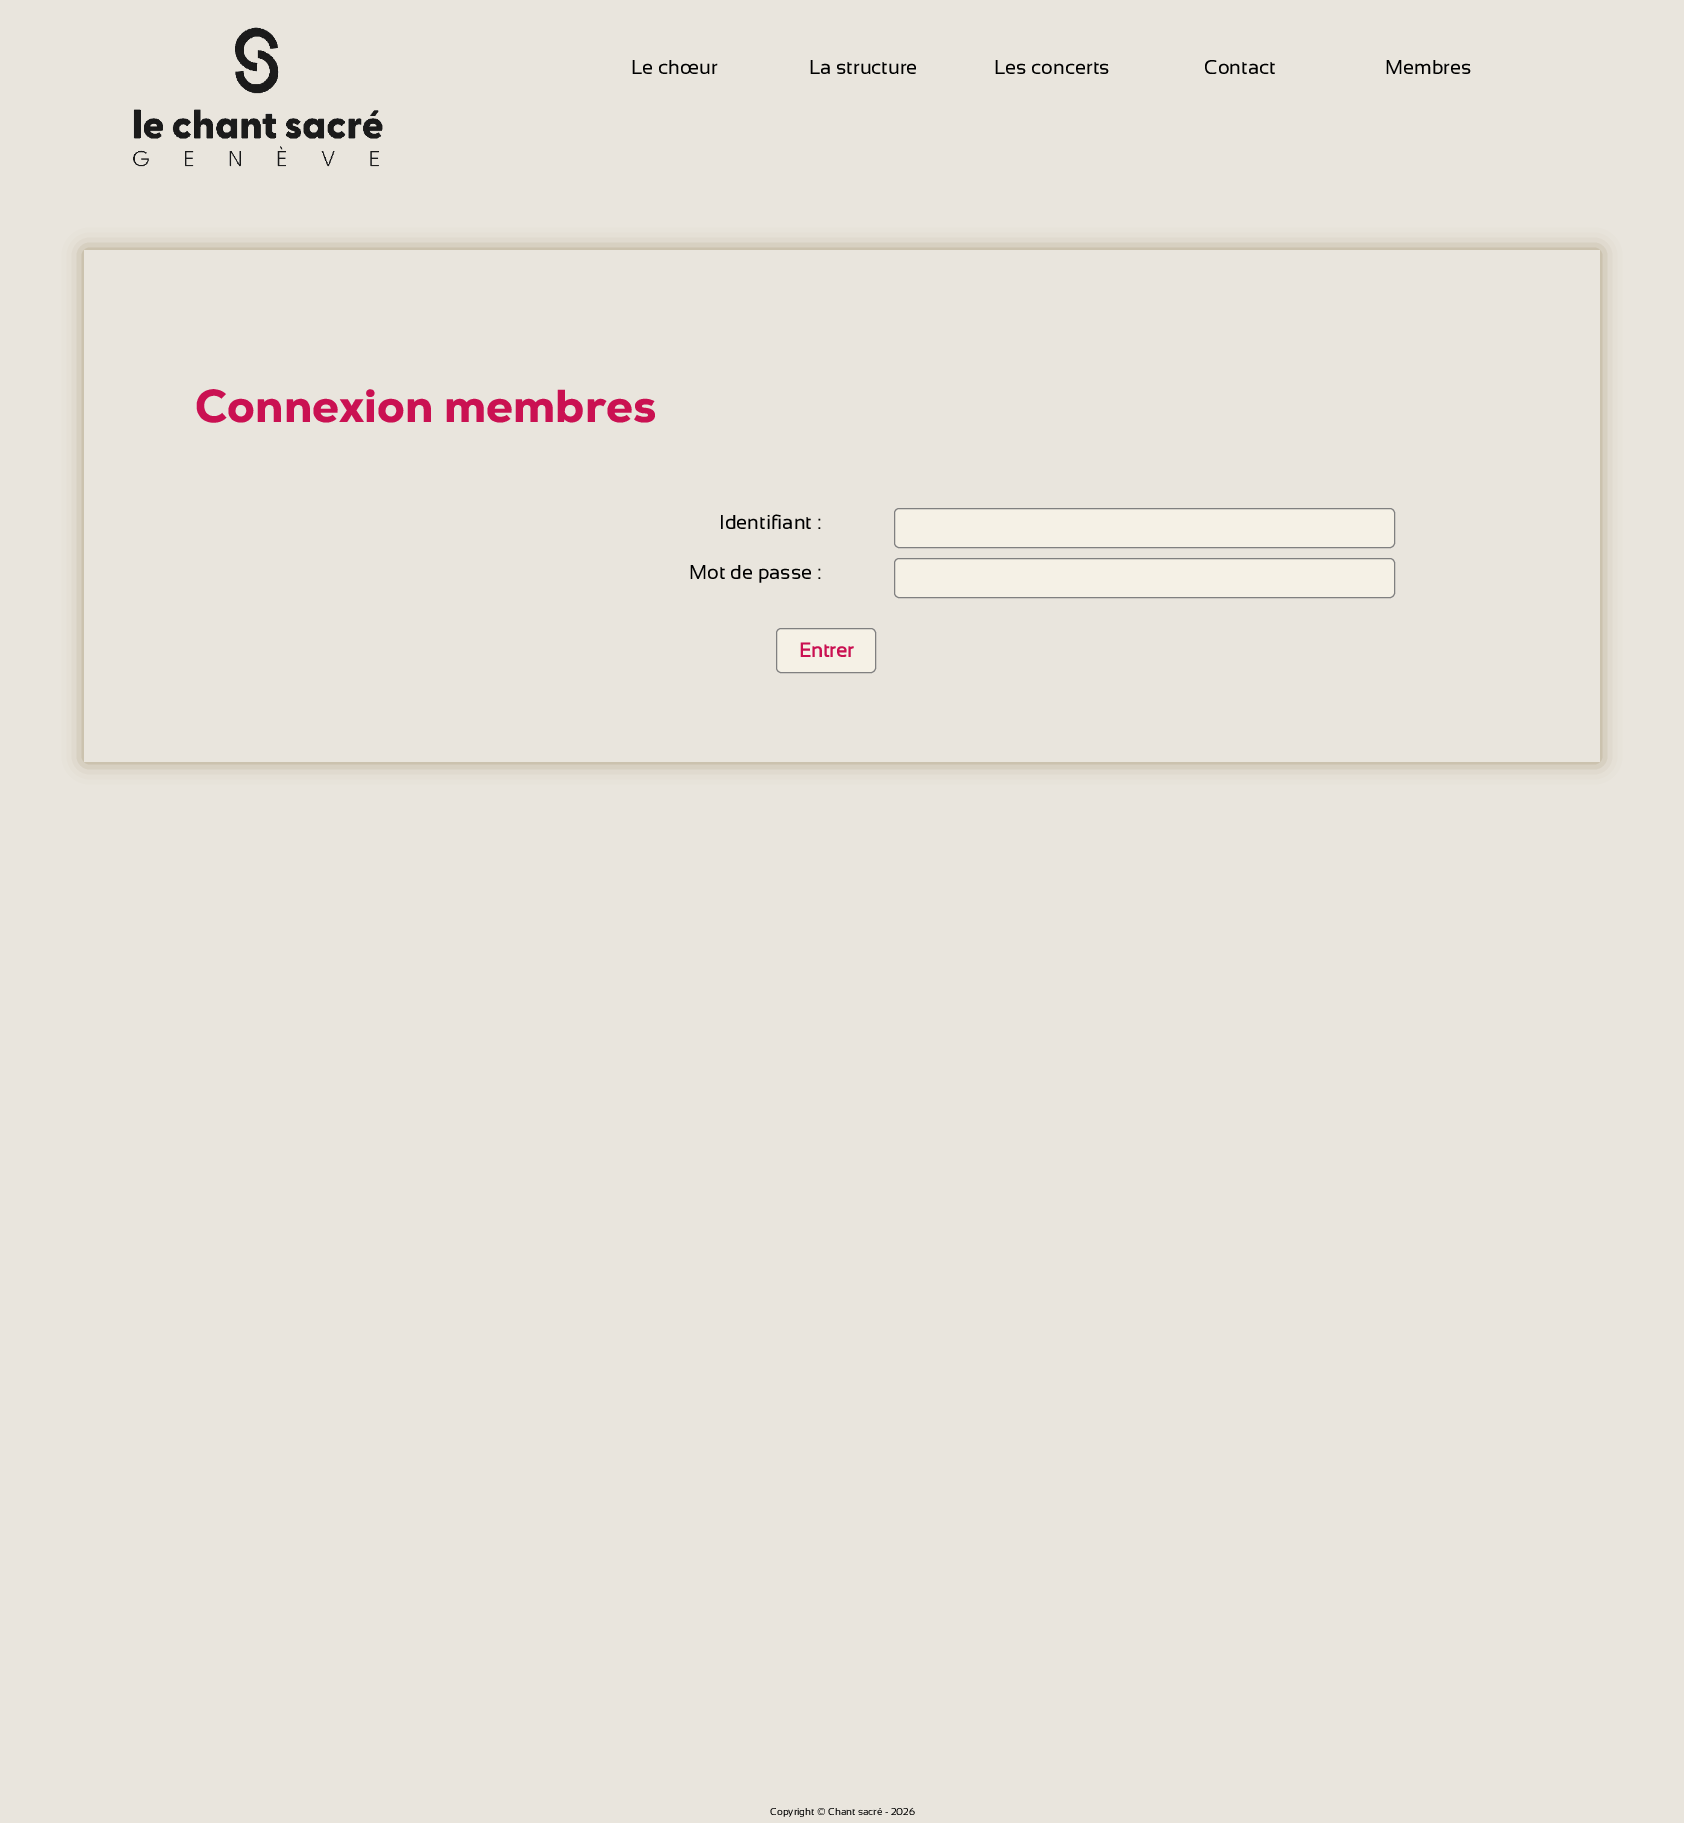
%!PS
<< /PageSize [1684 1823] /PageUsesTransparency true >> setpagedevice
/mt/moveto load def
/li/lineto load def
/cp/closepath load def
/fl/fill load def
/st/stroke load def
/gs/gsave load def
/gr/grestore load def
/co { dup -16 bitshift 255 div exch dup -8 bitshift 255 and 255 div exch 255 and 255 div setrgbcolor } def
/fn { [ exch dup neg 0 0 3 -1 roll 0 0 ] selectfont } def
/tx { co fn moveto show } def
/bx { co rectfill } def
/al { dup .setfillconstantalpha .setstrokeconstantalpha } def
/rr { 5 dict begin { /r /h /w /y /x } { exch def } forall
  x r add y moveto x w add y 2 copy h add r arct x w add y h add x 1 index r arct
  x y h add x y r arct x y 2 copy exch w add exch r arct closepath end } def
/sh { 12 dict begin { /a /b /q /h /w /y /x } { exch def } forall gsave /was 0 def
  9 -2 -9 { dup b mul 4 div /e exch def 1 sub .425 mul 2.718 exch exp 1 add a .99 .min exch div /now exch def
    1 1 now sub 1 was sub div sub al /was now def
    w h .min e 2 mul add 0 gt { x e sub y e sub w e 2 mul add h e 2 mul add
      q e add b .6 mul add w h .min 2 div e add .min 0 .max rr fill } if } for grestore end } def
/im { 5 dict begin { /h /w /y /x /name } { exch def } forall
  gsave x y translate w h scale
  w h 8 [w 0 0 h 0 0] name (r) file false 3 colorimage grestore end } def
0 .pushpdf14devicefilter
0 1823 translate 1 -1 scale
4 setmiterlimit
0 0 1684 1823 16#E9E5DD bx
(media/1.raw) 133 27 250 140 im
gs
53 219 mt 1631 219 li 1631 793 li 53 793 li cp 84 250 mt 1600 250 li 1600 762 li 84 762 li cp eoclip newpath
16#938058 co
84 250 1516 512 0 10 .7 sh
gr
16#F5F1E6 co
894.5 508.5 500 39 4.5 rr gs fl gr
16#808080 co
st
16#F5F1E6 co
894.5 558.5 500 39 4.5 rr gs fl gr
16#808080 co
st
16#F5F1E6 co
776.5 628.5 99 44 4.5 rr gs fl gr
16#808080 co
st
(Le chœur) 631 74 /Sansation-Regular 20 16#000000 tx
(La structure) 809 74 /Sansation-Regular 20 16#000000 tx
(Les concerts) 994 74 /Sansation-Regular 20 16#000000 tx
(Contact) 1204 74 /Sansation-Regular 20 16#000000 tx
(Membres) 1385 74 /Sansation-Regular 20 16#000000 tx
(Connexion membres) 195 422 /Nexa-Black 46 16#CA1152 tx
(Identifiant :) 719 529 /Sansation-Regular 20 16#000000 tx
(Mot de passe :) 689 579 /Sansation-Regular 20 16#000000 tx
(Entrer) 799 657 /Sansation-Bold 20 16#CA1152 tx
(Copyright © Chant sacré - 2026) 770 1815 /Sansation-Regular 10 16#000000 tx
.poppdf14devicefilter showpage
